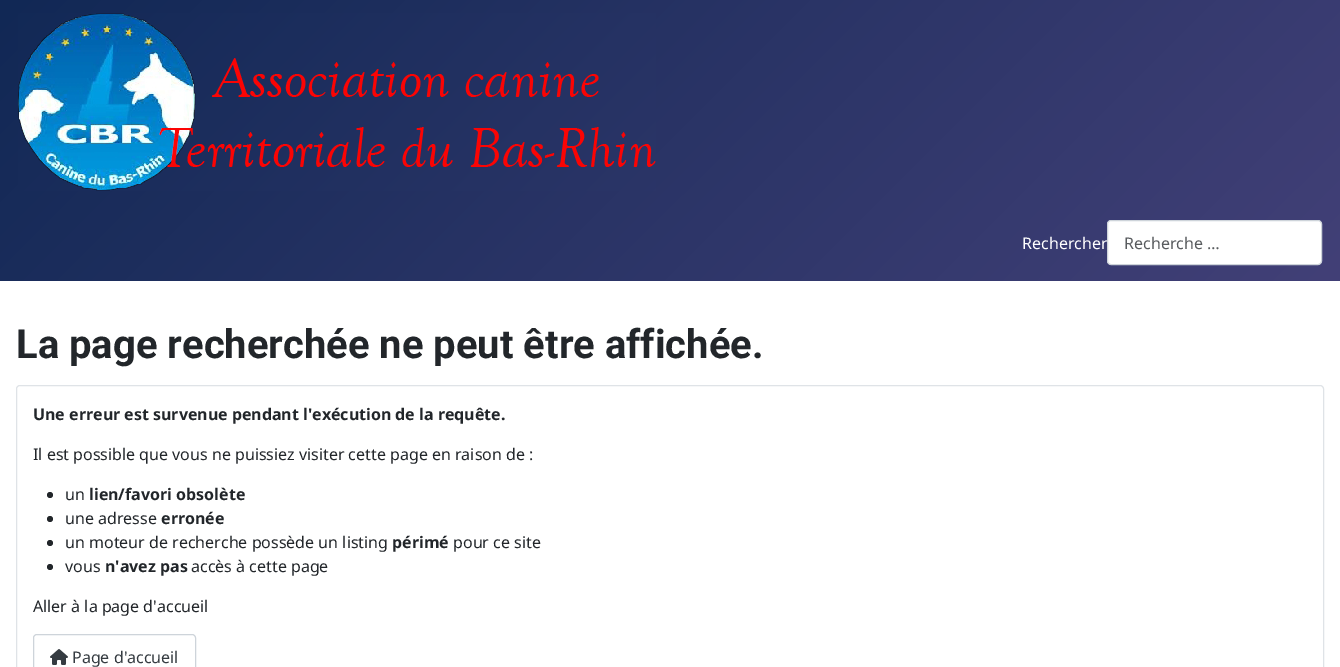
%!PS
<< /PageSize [1340 667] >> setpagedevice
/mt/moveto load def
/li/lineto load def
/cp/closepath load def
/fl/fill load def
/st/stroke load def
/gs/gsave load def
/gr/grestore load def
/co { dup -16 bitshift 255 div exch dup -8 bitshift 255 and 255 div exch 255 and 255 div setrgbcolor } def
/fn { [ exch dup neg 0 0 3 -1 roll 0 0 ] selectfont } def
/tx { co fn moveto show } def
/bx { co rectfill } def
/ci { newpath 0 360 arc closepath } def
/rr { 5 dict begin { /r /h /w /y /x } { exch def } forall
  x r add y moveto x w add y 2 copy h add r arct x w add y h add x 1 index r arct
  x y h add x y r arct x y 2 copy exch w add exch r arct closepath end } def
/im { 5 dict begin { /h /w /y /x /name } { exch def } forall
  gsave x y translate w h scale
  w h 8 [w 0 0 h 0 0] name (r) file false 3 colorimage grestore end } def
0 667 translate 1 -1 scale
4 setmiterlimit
0 0 1340 667 16#FFFFFF bx
gs 0 0 mt 1340 0 li 1340 281 li 0 281 li cp clip newpath
<< /ShadingType 2 /ColorSpace /DeviceRGB /Coords [265 -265 1075 546] /Extend [true true] /Function << /FunctionType 2 /Domain [0 1] /C0 [.067 .157 .333] /C1 [.259 .251 .467] /N 1 >> >> shfill gr
(media/1.raw) 18 13 638 178 im
1107.5 220.5 214 44 3.5 rr gs fl gr
16#CED4DA co
st
16#DFE3E7 co
16.5 385.5 1307 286 3.5 rr st
16#22262A co
50 495 3 ci fl
50 519 3 ci fl
50 543 3 ci fl
50 567 3 ci fl
16#CED4DA co
33.5 634.5 162 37 3.5 rr st
(media/2.raw) 50 649 18 16 im
(Rechercher) 1022 249 /NotoSans-Regular 16 16#FFFFFF tx
(Recherche …) 1124 249 /NotoSans-Regular 16 16#595C5F tx
(La page recherchée ne peut être affichée.) 16 358 /Roboto-Bold 40 16#22262A tx
(Une erreur est survenue pendant l'exécution de la requête.) 33 420 /NotoSans-Bold 16 16#22262A tx
(Il est possible que vous ne puissiez visiter cette page en raison de :) 33 460 /NotoSans-Regular 16 16#22262A tx
(un) 65 500 /NotoSans-Regular 16 16#22262A tx
(lien/favori obsolète) 89 500 /NotoSans-Bold 16 16#22262A tx
(une adresse) 65 524 /NotoSans-Regular 16 16#22262A tx
(erronée) 161 524 /NotoSans-Bold 16 16#22262A tx
(un moteur de recherche possède un listing) 65 548 /NotoSans-Regular 16 16#22262A tx
(périmé) 392 548 /NotoSans-Bold 16 16#22262A tx
(pour ce site) 453 548 /NotoSans-Regular 16 16#22262A tx
(vous) 65 572 /NotoSans-Regular 16 16#22262A tx
(n'avez pas) 105 572 /NotoSans-Bold 16 16#22262A tx
(accès à cette page) 191 572 /NotoSans-Regular 16 16#22262A tx
(Aller à la page d'accueil) 33 612 /NotoSans-Regular 16 16#22262A tx
(Page d'accueil) 72 663 /NotoSans-Regular 16 16#353B41 tx
showpage
